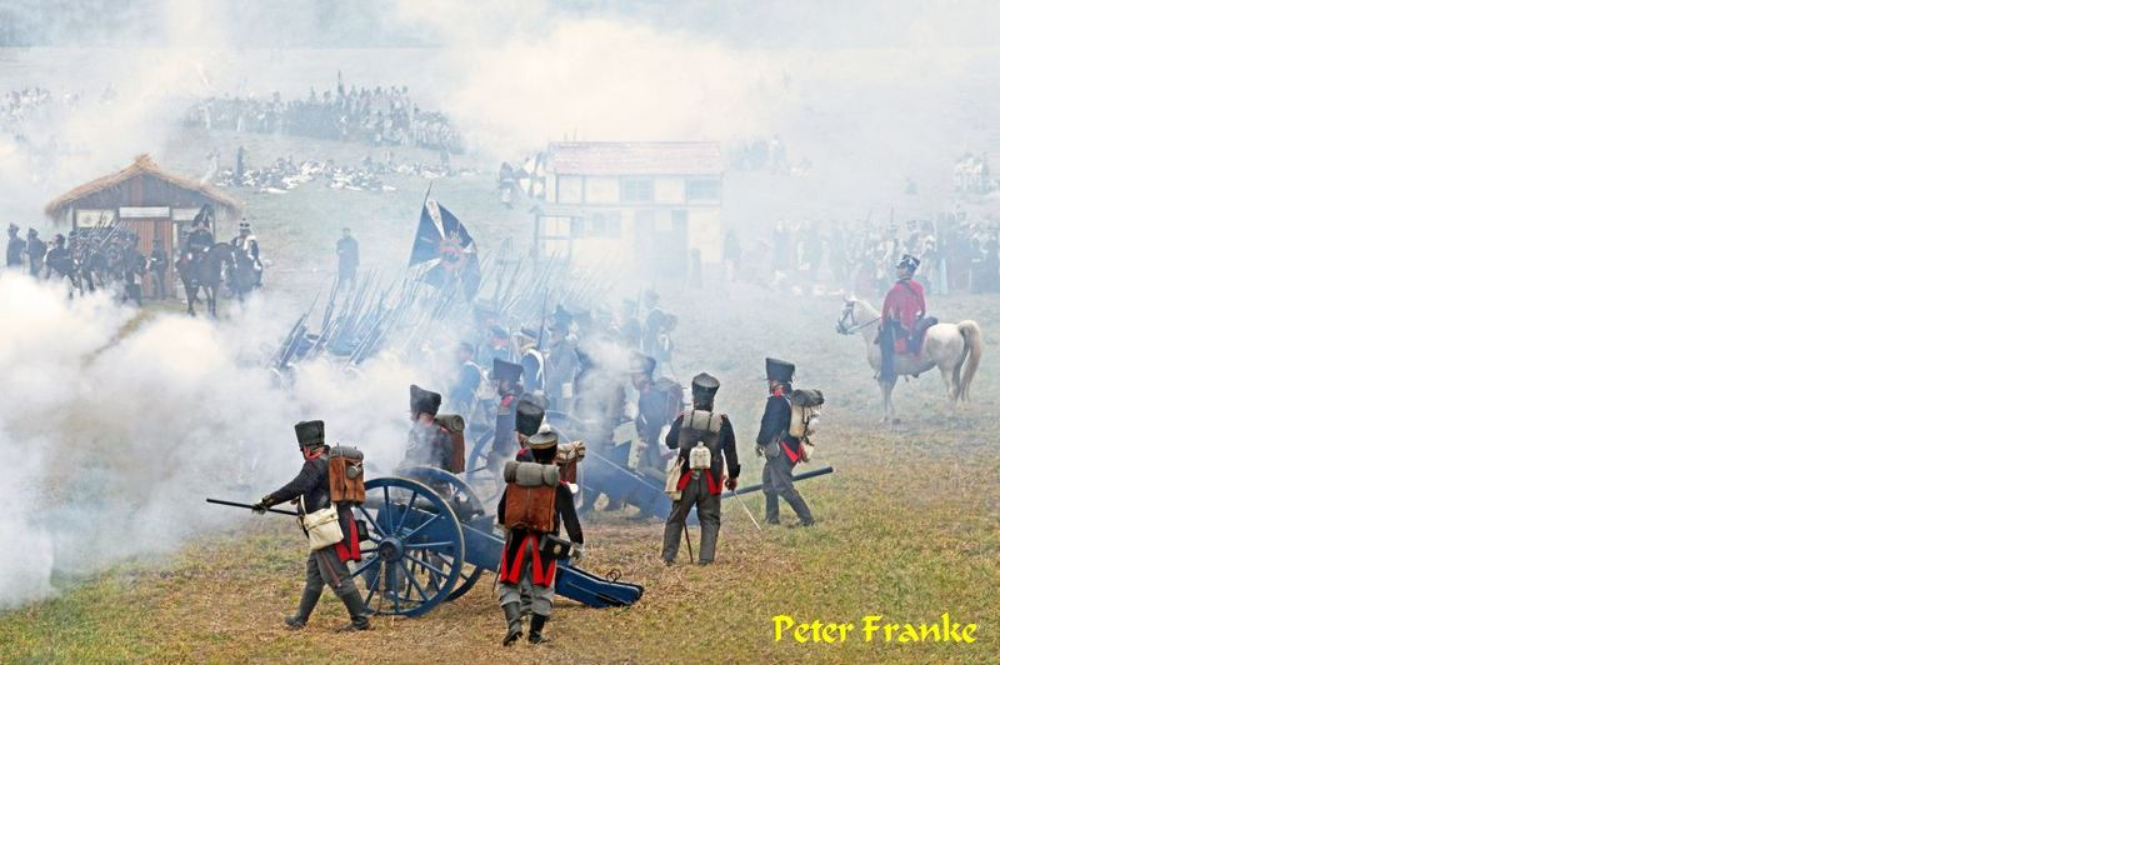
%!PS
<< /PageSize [2149 866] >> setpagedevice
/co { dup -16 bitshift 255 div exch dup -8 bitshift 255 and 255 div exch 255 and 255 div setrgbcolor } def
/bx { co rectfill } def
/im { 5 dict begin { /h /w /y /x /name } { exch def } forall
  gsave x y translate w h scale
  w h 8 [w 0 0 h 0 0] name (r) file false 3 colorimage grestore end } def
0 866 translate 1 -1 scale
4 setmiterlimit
0 0 2149 866 16#FFFFFF bx
(media/1.raw) 0 0 1000 665 im
showpage
